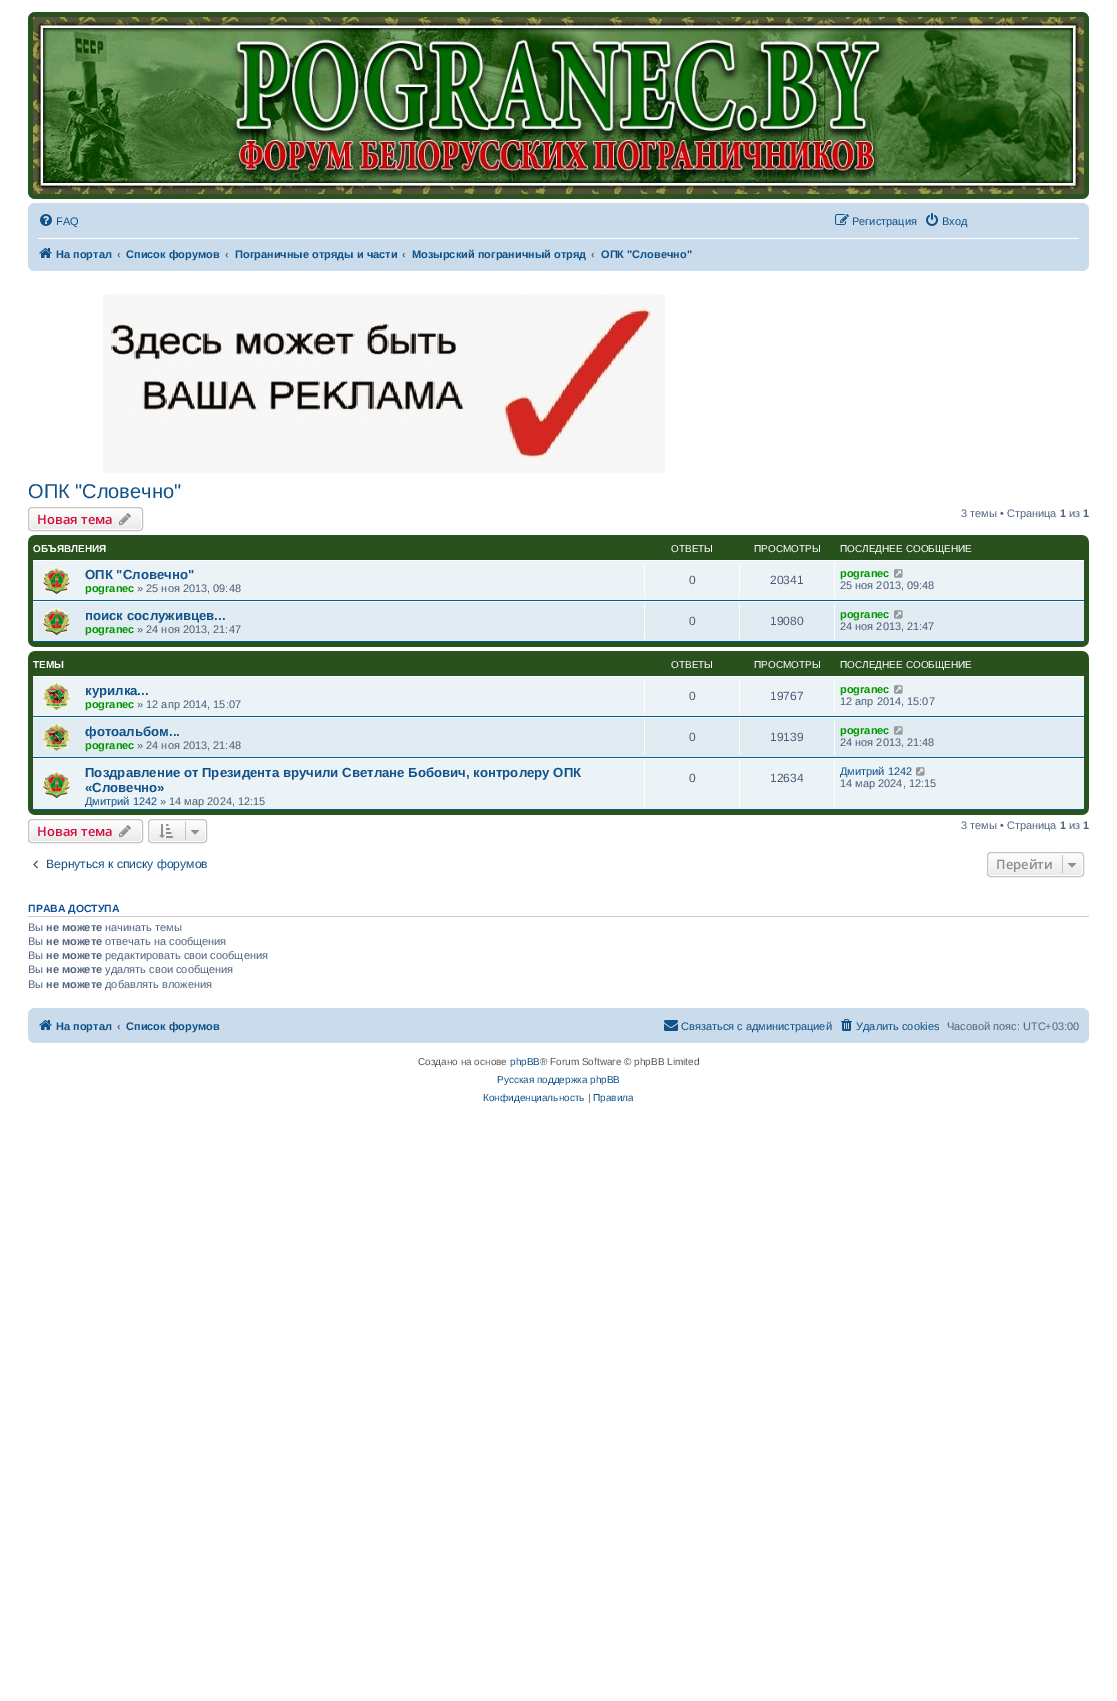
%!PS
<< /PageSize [1117 1701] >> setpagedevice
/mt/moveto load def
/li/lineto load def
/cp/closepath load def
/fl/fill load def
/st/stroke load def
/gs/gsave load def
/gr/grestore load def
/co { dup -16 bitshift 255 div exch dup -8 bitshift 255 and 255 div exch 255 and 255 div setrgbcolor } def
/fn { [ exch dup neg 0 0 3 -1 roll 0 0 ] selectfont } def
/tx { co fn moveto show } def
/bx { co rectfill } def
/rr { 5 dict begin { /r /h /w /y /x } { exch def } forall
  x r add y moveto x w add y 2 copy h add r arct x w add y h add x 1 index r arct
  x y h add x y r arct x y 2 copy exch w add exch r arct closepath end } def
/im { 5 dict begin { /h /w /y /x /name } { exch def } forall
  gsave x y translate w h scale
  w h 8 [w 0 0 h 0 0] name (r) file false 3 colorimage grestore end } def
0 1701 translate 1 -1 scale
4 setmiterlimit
0 0 1117 1701 16#FFFFFF bx
(media/1.raw) 28 12 1061 187 im
(media/2.raw) 33 17 1051 177 im
16#CADCEB co
28 203 1061 68 7 rr fl
(media/3.raw) 40 214 12 12 im
(media/4.raw) 835 214 14 11 im
(media/5.raw) 926 213 12 13 im
38 238 1041 1 16#FFFFFF bx
(media/6.raw) 39 248 13 10 im
(media/7.raw) 103 294 562 179 im
gs
28 507 115 24 4 rr clip newpath
gs 28 508 mt 143 508 li 143 530 li 28 530 li cp clip newpath
<< /ShadingType 2 /ColorSpace /DeviceRGB /Coords [86 508 86 530] /Extend [true true] /Function << /FunctionType 2 /Domain [0 1] /C0 [1 1 1] /C1 [.914 .914 .914] /N 1 >> >> shfill gr
gr
29.5 508.5 112 21 2.5 rr st
16#C7C3BF co
28.5 507.5 114 23 3.5 rr st
(media/8.raw) 119 513 12 12 im
(media/9.raw) 28 535 1061 112 im
33 561 1051 39 16#ECF3F7 bx
33 560 1051 1 16#FFFFFF bx
33 600 1051 1 16#00608F bx
(media/10.raw) 43 567 27 27 im
644 563 1 35 16#FFFFFF bx
739 563 1 35 16#FFFFFF bx
834 563 1 35 16#FFFFFF bx
(media/11.raw) 894 569 9 9 im
33 602 1051 39 16#E1EBF2 bx
33 601 1051 1 16#FFFFFF bx
33 641 1051 1 16#00608F bx
(media/12.raw) 43 608 27 27 im
644 604 1 35 16#FFFFFF bx
739 604 1 35 16#FFFFFF bx
834 604 1 35 16#FFFFFF bx
(media/13.raw) 894 610 9 9 im
(media/14.raw) 28 651 1061 164 im
33 677 1051 39 16#ECF3F7 bx
33 676 1051 1 16#FFFFFF bx
33 716 1051 1 16#00608F bx
(media/15.raw) 43 683 27 27 im
644 679 1 35 16#FFFFFF bx
739 679 1 35 16#FFFFFF bx
834 679 1 35 16#FFFFFF bx
(media/11.raw) 894 685 9 9 im
33 718 1051 39 16#E1EBF2 bx
33 717 1051 1 16#FFFFFF bx
33 757 1051 1 16#00608F bx
(media/16.raw) 43 724 27 27 im
644 720 1 35 16#FFFFFF bx
739 720 1 35 16#FFFFFF bx
834 720 1 35 16#FFFFFF bx
(media/13.raw) 894 726 9 9 im
33 759 1051 50 16#ECF3F7 bx
33 758 1051 1 16#FFFFFF bx
33 809 1051 1 16#00608F bx
(media/10.raw) 43 771 27 27 im
644 761 1 46 16#FFFFFF bx
739 761 1 46 16#FFFFFF bx
834 761 1 46 16#FFFFFF bx
(media/11.raw) 916 767 9 9 im
gs
28 819 115 24 4 rr clip newpath
gs 28 820 mt 143 820 li 143 842 li 28 842 li cp clip newpath
<< /ShadingType 2 /ColorSpace /DeviceRGB /Coords [86 820 86 842] /Extend [true true] /Function << /FunctionType 2 /Domain [0 1] /C0 [1 1 1] /C1 [.914 .914 .914] /N 1 >> >> shfill gr
gr
29.5 820.5 112 21 2.5 rr st
16#C7C3BF co
28.5 819.5 114 23 3.5 rr st
(media/8.raw) 119 825 12 12 im
gs
148 819 59 24 4 rr clip newpath
gs 148 820 mt 207 820 li 207 842 li 148 842 li cp clip newpath
<< /ShadingType 2 /ColorSpace /DeviceRGB /Coords [178 820 178 842] /Extend [true true] /Function << /FunctionType 2 /Domain [0 1] /C0 [1 1 1] /C1 [.914 .914 .914] /N 1 >> >> shfill gr
gr
16#FFFFFF co
149.5 820.5 56 21 2.5 rr st
16#C7C3BF co
148.5 819.5 58 23 3.5 rr st
(media/17.raw) 159 824 14 14 im
185 822 1 18 16#C7C3BF bx
(media/18.raw) 191 830 8 5 im
(media/19.raw) 33 860 5 9 im
gs
987 852 97 25 4 rr clip newpath
gs 987 853 mt 1084 853 li 1084 876 li 987 876 li cp clip newpath
<< /ShadingType 2 /ColorSpace /DeviceRGB /Coords [1036 853 1036 876] /Extend [true true] /Function << /FunctionType 2 /Domain [0 1] /C0 [1 1 1] /C1 [.914 .914 .914] /N 1 >> >> shfill gr
gr
16#FFFFFF co
988.5 853.5 94 22 2.5 rr st
16#C7C3BF co
987.5 852.5 96 24 3.5 rr st
1062 855 1 18 16#C7C3BF bx
(media/18.raw) 1068 863 8 5 im
28 916 1061 1 16#CCCCCC bx
16#CADCEB co
28 1008 1061 35 7 rr fl
(media/6.raw) 39 1020 13 10 im
(media/20.raw) 664 1020 14 11 im
(media/21.raw) 841 1019 11 12 im
(FAQ) 56 225 /LiberationSans-Regular 11 16#105289 tx
(Регистрация) 852 225 /LiberationSans-Regular 11 16#105289 tx
(Вход) 942 225 /LiberationSans-Regular 11 16#105289 tx
(На портал) 56 258 /LiberationSans-Bold 11 16#105289 tx
(‹) 117 258 /LiberationSans-Bold 11 16#536482 tx
(Список форумов) 126 258 /LiberationSans-Bold 11 16#105289 tx
(‹) 225 258 /LiberationSans-Bold 11 16#536482 tx
(Пограничные отряды и части) 235 258 /LiberationSans-Bold 11 16#105289 tx
(‹) 402 258 /LiberationSans-Bold 11 16#536482 tx
(Мозырский пограничный отряд) 412 258 /LiberationSans-Bold 11 16#105289 tx
(‹) 591 258 /LiberationSans-Bold 11 16#536482 tx
(ОПК "Словечно") 601 258 /LiberationSans-Bold 11 16#105289 tx
(ОПК "Словечно") 28 498 /LiberationSans-Regular 20 16#105289 tx
(Новая тема) 37 524 /OpenSans-SemiBold 13 16#D31141 tx
(3 темы • Страница) 961 517 /LiberationSans-Regular 11 16#536482 tx
(1) 1060 517 /LiberationSans-Bold 11 16#536482 tx
(из) 1069 517 /LiberationSans-Regular 11 16#536482 tx
(1) 1083 517 /LiberationSans-Bold 11 16#536482 tx
(ОБЪЯВЛЕНИЯ) 33 552 /LiberationSans-Bold 10 16#FFFFFF tx
(ОТВЕТЫ) 671 552 /LiberationSans-Regular 10 16#FFFFFF tx
(ПРОСМОТРЫ) 754 552 /LiberationSans-Regular 10 16#FFFFFF tx
(ПОСЛЕДНЕЕ СООБЩЕНИЕ) 840 552 /LiberationSans-Regular 10 16#FFFFFF tx
(ОПК "Словечно") 85 579 /LiberationSans-Bold 13.2 16#105289 tx
(pogranec) 85 592 /LiberationSans-Bold 11 16#009900 tx
(» 25 ноя 2013, 09:48) 137 592 /LiberationSans-Regular 11 16#4C5D77 tx
(0) 689 584 /LiberationSans-Regular 12 16#4C5D77 tx
(20341) 770 584 /LiberationSans-Regular 12 16#4C5D77 tx
(pogranec) 840 577 /LiberationSans-Bold 11 16#009900 tx
(25 ноя 2013, 09:48) 840 589 /LiberationSans-Regular 11 16#4C5D77 tx
(поиск сослуживцев...) 85 620 /LiberationSans-Bold 13.2 16#105289 tx
(pogranec) 85 633 /LiberationSans-Bold 11 16#009900 tx
(» 24 ноя 2013, 21:47) 137 633 /LiberationSans-Regular 11 16#4C5D77 tx
(0) 689 625 /LiberationSans-Regular 12 16#4C5D77 tx
(19080) 770 625 /LiberationSans-Regular 12 16#4C5D77 tx
(pogranec) 840 618 /LiberationSans-Bold 11 16#009900 tx
(24 ноя 2013, 21:47) 840 630 /LiberationSans-Regular 11 16#4C5D77 tx
(ТЕМЫ) 33 668 /LiberationSans-Bold 10 16#FFFFFF tx
(ОТВЕТЫ) 671 668 /LiberationSans-Regular 10 16#FFFFFF tx
(ПРОСМОТРЫ) 754 668 /LiberationSans-Regular 10 16#FFFFFF tx
(ПОСЛЕДНЕЕ СООБЩЕНИЕ) 840 668 /LiberationSans-Regular 10 16#FFFFFF tx
(курилка...) 85 695 /LiberationSans-Bold 13.2 16#105289 tx
(pogranec) 85 708 /LiberationSans-Bold 11 16#009900 tx
(» 12 апр 2014, 15:07) 137 708 /LiberationSans-Regular 11 16#4C5D77 tx
(0) 689 700 /LiberationSans-Regular 12 16#4C5D77 tx
(19767) 770 700 /LiberationSans-Regular 12 16#4C5D77 tx
(pogranec) 840 693 /LiberationSans-Bold 11 16#009900 tx
(12 апр 2014, 15:07) 840 705 /LiberationSans-Regular 11 16#4C5D77 tx
(фотоальбом...) 85 736 /LiberationSans-Bold 13.2 16#105289 tx
(pogranec) 85 749 /LiberationSans-Bold 11 16#009900 tx
(» 24 ноя 2013, 21:48) 137 749 /LiberationSans-Regular 11 16#4C5D77 tx
(0) 689 741 /LiberationSans-Regular 12 16#4C5D77 tx
(19139) 770 741 /LiberationSans-Regular 12 16#4C5D77 tx
(pogranec) 840 734 /LiberationSans-Bold 11 16#009900 tx
(24 ноя 2013, 21:48) 840 746 /LiberationSans-Regular 11 16#4C5D77 tx
(Поздравление от Президента вручили Светлане Бобович, контролеру ОПК) 85 777 /LiberationSans-Bold 13.2 16#105289 tx
(«Словечно») 85 792 /LiberationSans-Bold 13.2 16#105289 tx
gs
33 761 1051 46 rectclip
(Дмитрий 1242) 85 805 /LiberationSans-Regular 11 16#105289 tx
gr
(» 14 мар 2024, 12:15) 160 805 /LiberationSans-Regular 11 16#4C5D77 tx
(0) 689 782 /LiberationSans-Regular 12 16#4C5D77 tx
(12634) 770 782 /LiberationSans-Regular 12 16#4C5D77 tx
(Дмитрий 1242) 840 775 /LiberationSans-Regular 11 16#105289 tx
(14 мар 2024, 12:15) 840 787 /LiberationSans-Regular 11 16#4C5D77 tx
(Новая тема) 37 836 /OpenSans-SemiBold 13 16#D31141 tx
(3 темы • Страница) 961 829 /LiberationSans-Regular 11 16#536482 tx
(1) 1060 829 /LiberationSans-Bold 11 16#536482 tx
(из) 1069 829 /LiberationSans-Regular 11 16#536482 tx
(1) 1083 829 /LiberationSans-Bold 11 16#536482 tx
(Вернуться к списку форумов) 46 868 /LiberationSans-Regular 12.1 16#105289 tx
(Перейти) 996 869 /OpenSans-SemiBold 13 16#8F8F8F tx
(ПРАВА ДОСТУПА) 28 912 /LiberationSans-Bold 10.5 16#115098 tx
(Вы) 28 931 /LiberationSans-Regular 11 16#536482 tx
(не можете) 46 931 /LiberationSans-Bold 11 16#536482 tx
(начинать темы) 105 931 /LiberationSans-Regular 11 16#536482 tx
(Вы) 28 945 /LiberationSans-Regular 11 16#536482 tx
(не можете) 46 945 /LiberationSans-Bold 11 16#536482 tx
(отвечать на сообщения) 105 945 /LiberationSans-Regular 11 16#536482 tx
(Вы) 28 959 /LiberationSans-Regular 11 16#536482 tx
(не можете) 46 959 /LiberationSans-Bold 11 16#536482 tx
(редактировать свои сообщения) 105 959 /LiberationSans-Regular 11 16#536482 tx
(Вы) 28 973 /LiberationSans-Regular 11 16#536482 tx
(не можете) 46 973 /LiberationSans-Bold 11 16#536482 tx
(удалять свои сообщения) 105 973 /LiberationSans-Regular 11 16#536482 tx
(Вы) 28 988 /LiberationSans-Regular 11 16#536482 tx
(не можете) 46 988 /LiberationSans-Bold 11 16#536482 tx
(добавлять вложения) 105 988 /LiberationSans-Regular 11 16#536482 tx
(На портал) 56 1030 /LiberationSans-Bold 11 16#105289 tx
(‹) 117 1030 /LiberationSans-Bold 11 16#536482 tx
(Список форумов) 126 1030 /LiberationSans-Bold 11 16#105289 tx
(Связаться с администрацией) 681 1030 /LiberationSans-Regular 11 16#105289 tx
(Удалить cookies) 856 1030 /LiberationSans-Regular 11 16#105289 tx
(Часовой пояс: UTC+03:00) 947 1030 /LiberationSans-Regular 11 16#536482 tx
(Создано на основе) 418 1065 /LiberationSans-Regular 10 16#555555 tx
(phpBB) 510 1065 /LiberationSans-Regular 10 16#105289 tx
(® Forum Software © phpBB Limited) 540 1065 /LiberationSans-Regular 10 16#555555 tx
(Русская поддержка phpBB) 497 1083 /LiberationSans-Regular 10 16#105289 tx
(Конфиденциальность) 483 1101 /LiberationSans-Regular 10 16#105289 tx
(|) 588 1101 /LiberationSans-Regular 10 16#555555 tx
(Правила) 593 1101 /LiberationSans-Regular 10 16#105289 tx
showpage
